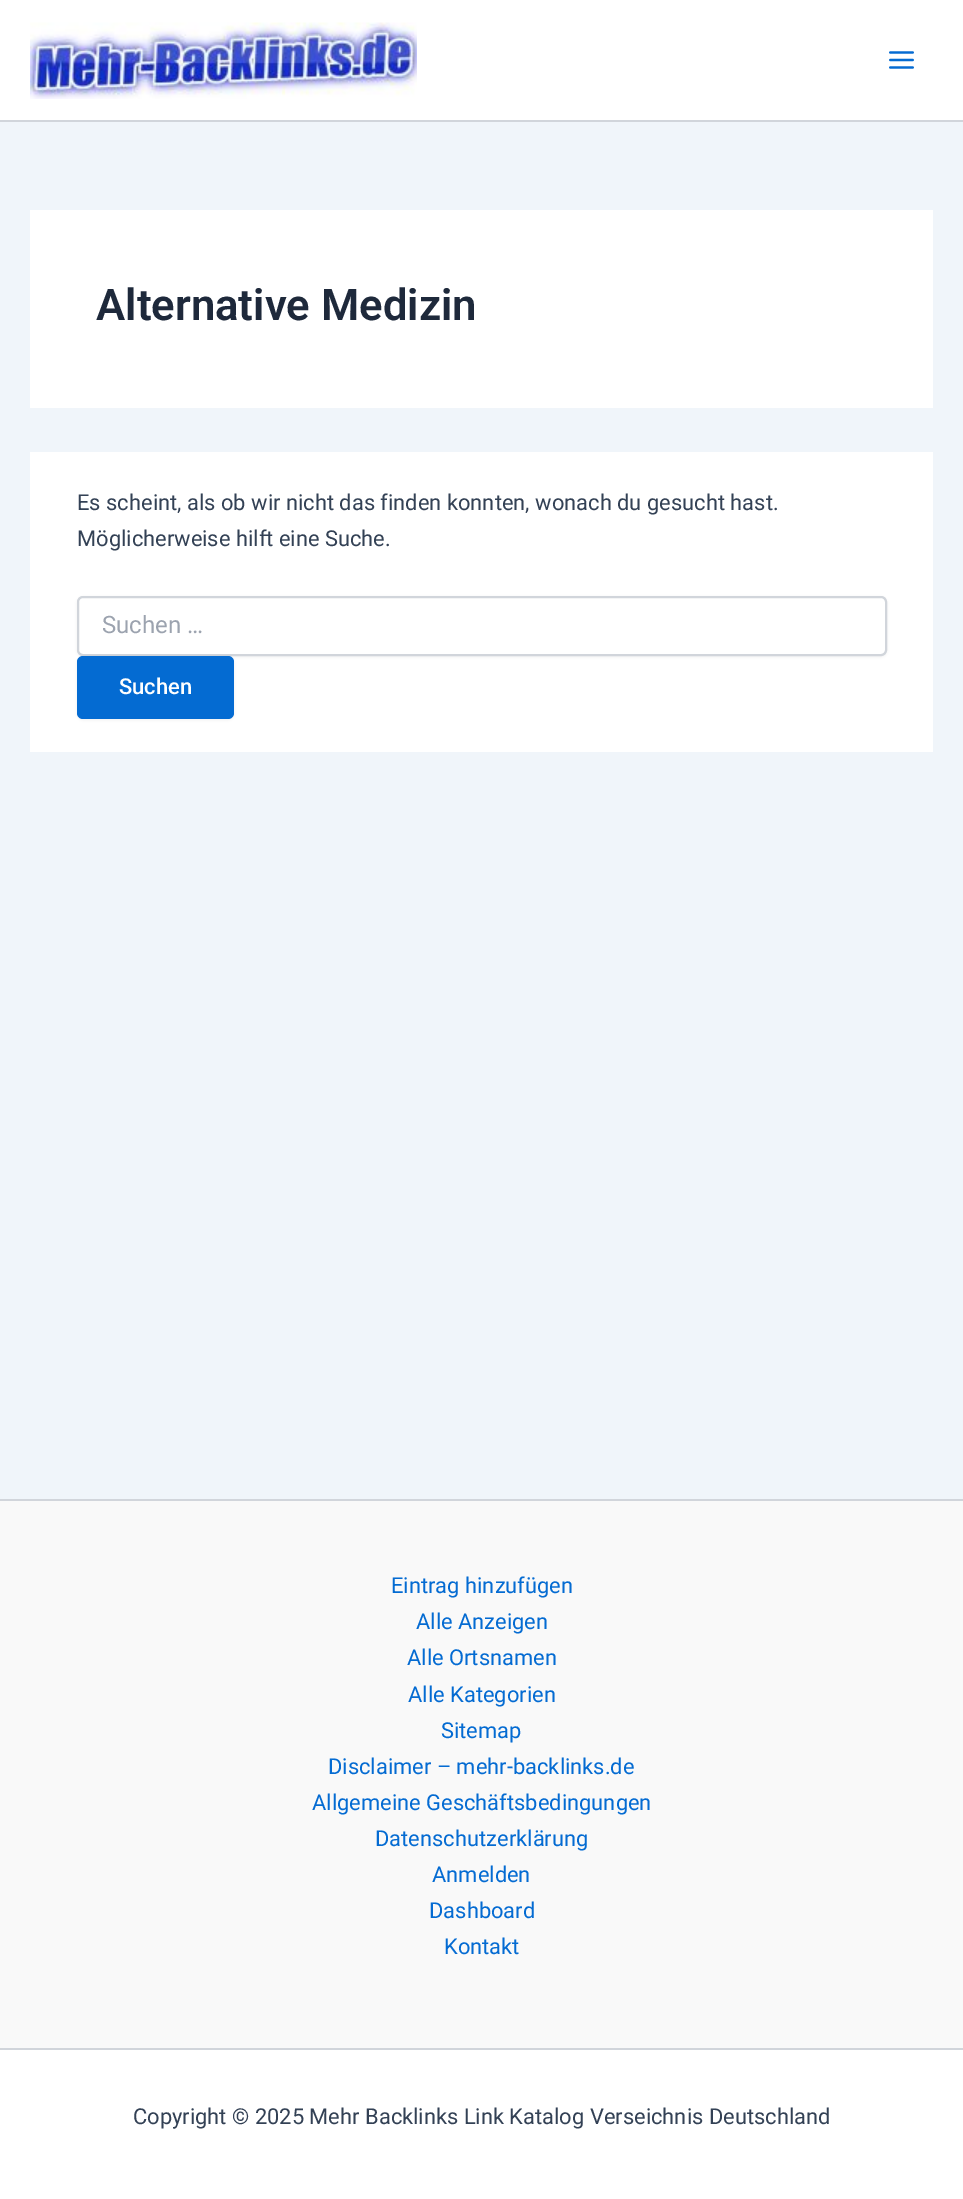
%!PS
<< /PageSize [963 2199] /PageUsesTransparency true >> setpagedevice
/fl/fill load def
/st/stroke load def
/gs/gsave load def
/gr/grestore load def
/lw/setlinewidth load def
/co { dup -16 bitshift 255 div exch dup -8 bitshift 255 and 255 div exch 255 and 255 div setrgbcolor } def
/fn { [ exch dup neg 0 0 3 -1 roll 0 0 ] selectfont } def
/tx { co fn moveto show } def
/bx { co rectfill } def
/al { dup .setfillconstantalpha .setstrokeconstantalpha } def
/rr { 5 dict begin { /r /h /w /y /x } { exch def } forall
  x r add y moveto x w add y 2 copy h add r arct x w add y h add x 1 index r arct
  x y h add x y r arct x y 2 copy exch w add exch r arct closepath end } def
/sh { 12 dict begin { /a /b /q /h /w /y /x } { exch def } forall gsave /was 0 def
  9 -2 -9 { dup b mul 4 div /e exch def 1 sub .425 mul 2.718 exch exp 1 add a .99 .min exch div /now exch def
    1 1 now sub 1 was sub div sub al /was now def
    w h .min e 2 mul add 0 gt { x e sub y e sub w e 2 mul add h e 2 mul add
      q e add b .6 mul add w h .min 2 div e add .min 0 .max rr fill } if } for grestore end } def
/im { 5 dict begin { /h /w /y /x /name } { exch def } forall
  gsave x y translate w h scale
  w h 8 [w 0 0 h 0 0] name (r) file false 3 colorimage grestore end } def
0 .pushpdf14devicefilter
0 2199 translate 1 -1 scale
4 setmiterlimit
0 0 963 2199 16#F0F5FA bx
0 0 963 120 16#FFFFFF bx
0 120 963 2 16#D1D5DB bx
(media/1.raw) 30 22 387 77 im
(media/2.raw) 889 51 25 18 im
30 210 903 198 16#FFFFFF bx
30 452 903 300 16#FFFFFF bx
16#000000 co
77 597 810 60 6 1.5 .05 sh
16#FFFFFF co
78 597 808 58 5 rr gs fl gr
16#D1D5DB co
2 lw
st
16#000000 co
77 657 157 63 6 1.5 .05 sh
16#046BD2 co
77 656 157 63 6 rr fl
0 1501 963 547 16#F9F9F9 bx
0 1499 963 2 16#D1D5DB bx
0 2050 963 149 16#FFFFFF bx
0 2048 963 2 16#D1D5DB bx
(Alternative Medizin) 96 320 /Roboto-SemiBold 43.75 16#1E293B tx
(Es scheint, als ob wir nicht das finden konnten, wonach du gesucht hast.) 77 510 /Roboto-Regular 21.9 16#334155 tx
(Möglicherweise hilft eine Suche.) 77 546 /Roboto-Regular 21.9 16#334155 tx
(Suchen …) 102 633 /Roboto-Regular 24 16#9CA3AF tx
(Suchen) 119 694 /Roboto-Medium 21.9 16#FFFFFF tx
(Eintrag hinzufügen) 391 1593 /Roboto-Regular 21.9 16#046BD2 tx
(Alle Anzeigen) 416 1629 /Roboto-Regular 21.9 16#046BD2 tx
(Alle Ortsnamen) 407 1665 /Roboto-Regular 21.9 16#046BD2 tx
(Alle Kategorien) 408 1702 /Roboto-Regular 21.9 16#046BD2 tx
(Sitemap) 441 1738 /Roboto-Regular 21.9 16#046BD2 tx
(Disclaimer – mehr-backlinks.de) 328 1774 /Roboto-Regular 21.9 16#046BD2 tx
(Allgemeine Geschäftsbedingungen) 312 1810 /Roboto-Regular 21.9 16#046BD2 tx
(Datenschutzerklärung) 375 1846 /Roboto-Regular 21.9 16#046BD2 tx
(Anmelden) 432 1882 /Roboto-Regular 21.9 16#046BD2 tx
(Dashboard) 429 1918 /Roboto-Regular 21.9 16#046BD2 tx
(Kontakt) 444 1954 /Roboto-Regular 21.9 16#046BD2 tx
(Copyright © 2025 Mehr Backlinks Link Katalog Verseichnis Deutschland) 133 2124 /Roboto-Regular 21.9 16#334155 tx
.poppdf14devicefilter showpage
